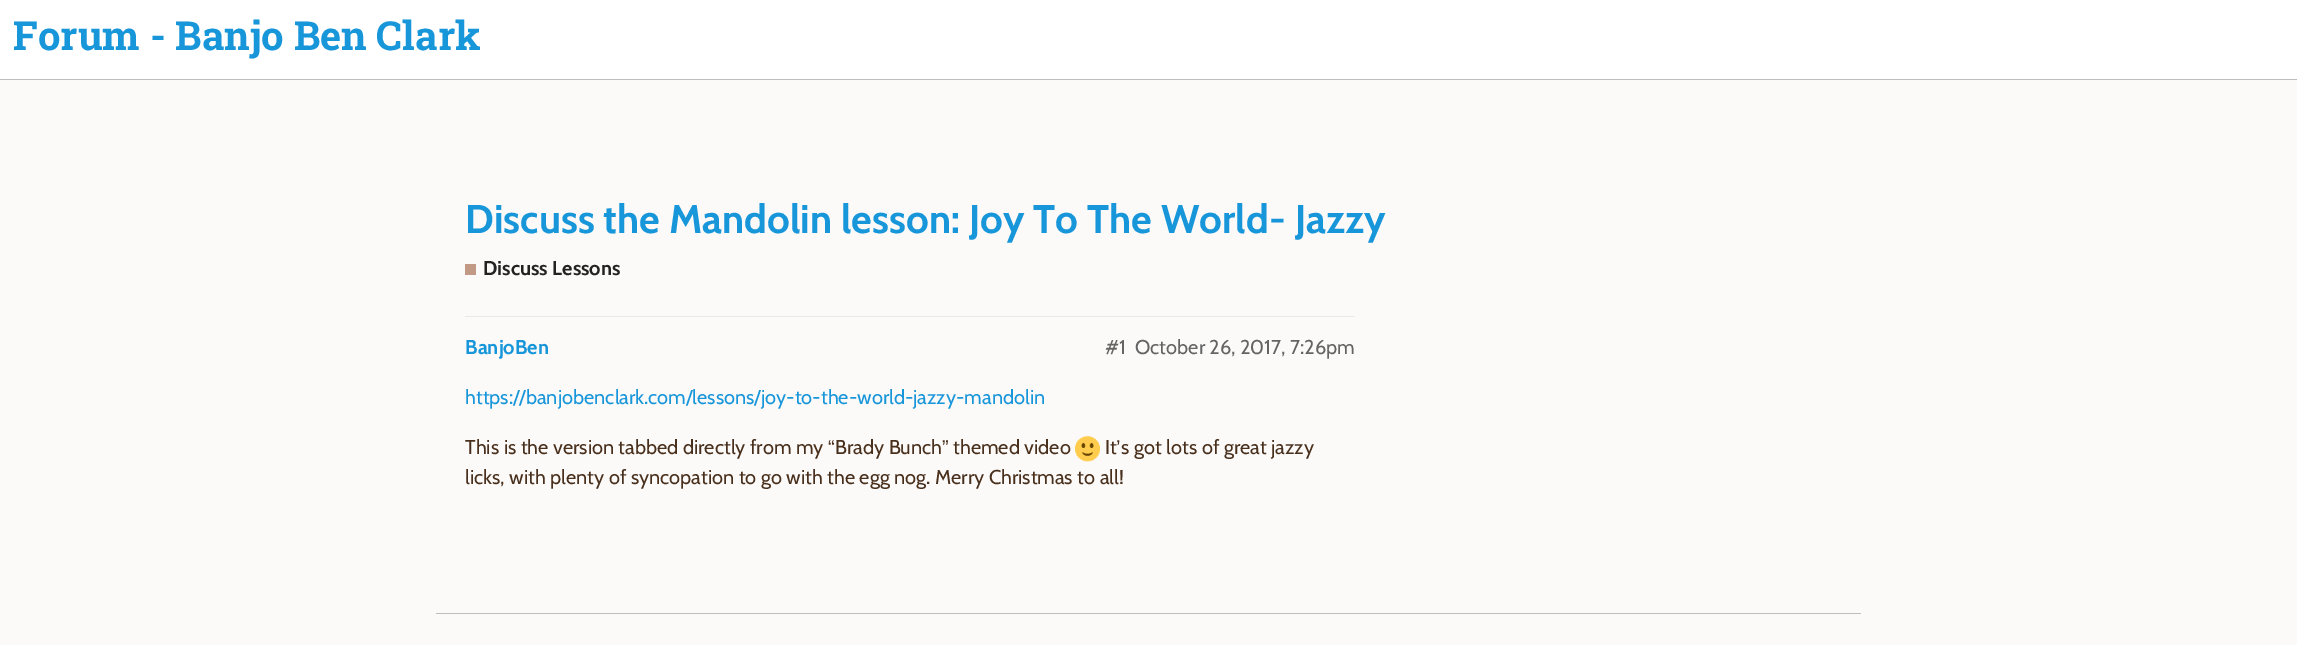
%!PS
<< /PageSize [2297 645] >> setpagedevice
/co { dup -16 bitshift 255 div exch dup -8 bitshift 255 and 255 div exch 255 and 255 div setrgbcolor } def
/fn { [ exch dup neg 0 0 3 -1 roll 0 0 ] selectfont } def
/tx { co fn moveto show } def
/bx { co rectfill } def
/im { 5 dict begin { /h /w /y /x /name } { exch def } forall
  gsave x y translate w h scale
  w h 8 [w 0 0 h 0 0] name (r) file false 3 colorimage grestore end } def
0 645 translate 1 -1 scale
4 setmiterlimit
0 0 2297 645 16#FCFAF9 bx
0 0 2297 79 16#FFFFFF bx
0 79 2297 1 16#BDBDBD bx
465 264 11 11 16#C29984 bx
465 316 890 1 16#E9E9E9 bx
(media/1.raw) 1075 436 25 26 im
436 613 1425 1 16#BDBDBD bx
(Forum - Banjo Ben Clark) 13 50 /RobotoSlab-Bold 40 16#1896DA tx
(Discuss the Mandolin lesson: Joy To The World- Jazzy) 465 233 /Cabin-Bold 40 16#1896DA tx
(Discuss Lessons) 483 275 /Cabin-Bold 20 16#222222 tx
(BanjoBen) 465 354 /Cabin-Bold 20 16#1896DA tx
(#1) 1105 354 /Cabin-Regular 20 16#646464 tx
(October 26, 2017, 7:26pm) 1135 354 /Cabin-Regular 20 16#646464 tx
(https://banjobenclark.com/lessons/joy-to-the-world-jazzy-mandolin) 465 404 /Cabin-Regular 20 16#1896DA tx
(This is the version tabbed directly from my) 465 454 /Cabin-Regular 20 16#49301D tx
(“) 828 454 /LiberationSans-Regular 20 16#49301D tx
(Brady Bunch) 835 454 /Cabin-Regular 20 16#49301D tx
(”) 942 454 /LiberationSans-Regular 20 16#49301D tx
(themed video) 953 454 /Cabin-Regular 20 16#49301D tx
(It s got lots of great jazzy) 1105 454 /Cabin-Regular 20 16#49301D tx
(’) 1116 454 /LiberationSans-Regular 20 16#49301D tx
(licks, with plenty of syncopation to go with the egg nog. Merry Christmas to all!) 465 484 /Cabin-Regular 20 16#49301D tx
showpage
